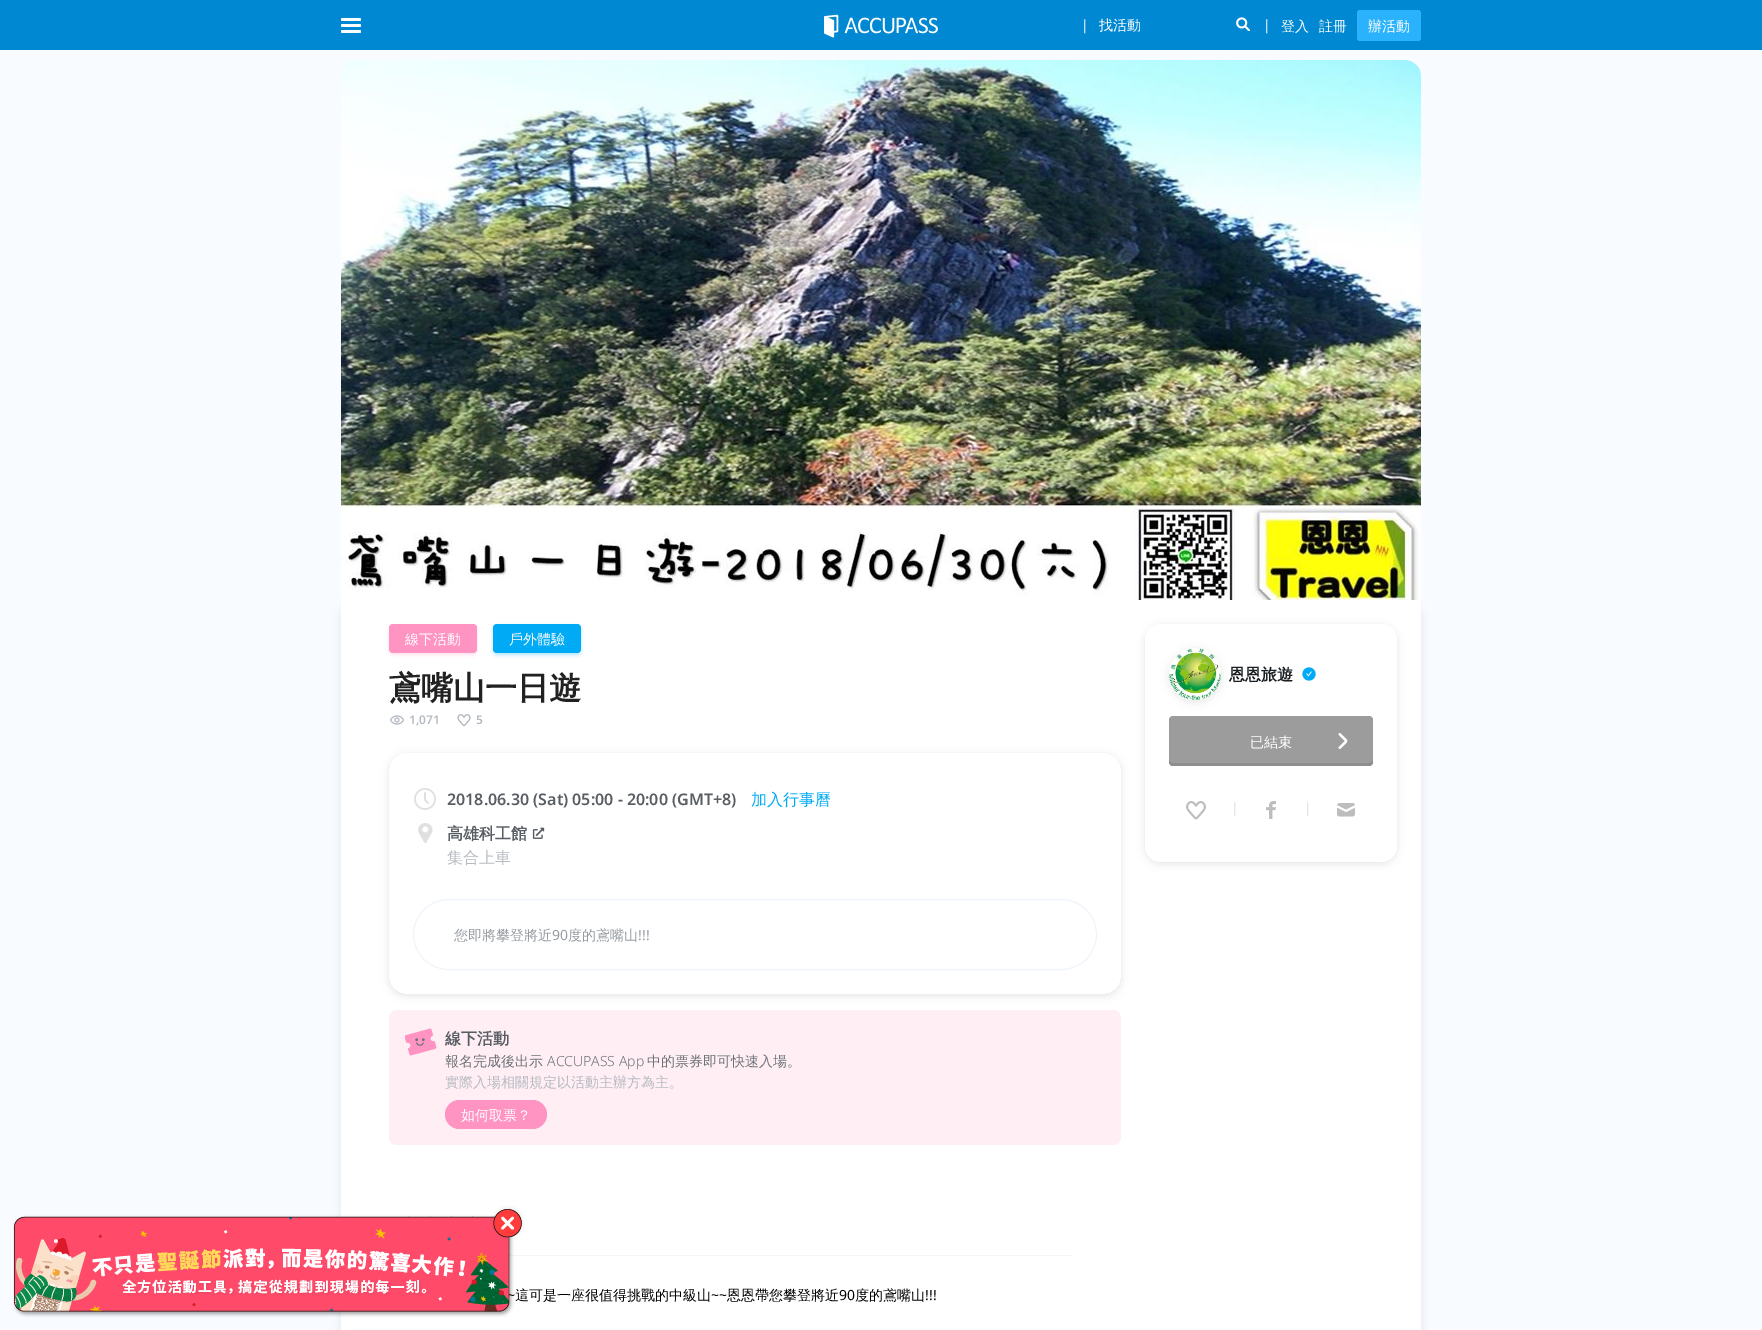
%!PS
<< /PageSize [1762 1330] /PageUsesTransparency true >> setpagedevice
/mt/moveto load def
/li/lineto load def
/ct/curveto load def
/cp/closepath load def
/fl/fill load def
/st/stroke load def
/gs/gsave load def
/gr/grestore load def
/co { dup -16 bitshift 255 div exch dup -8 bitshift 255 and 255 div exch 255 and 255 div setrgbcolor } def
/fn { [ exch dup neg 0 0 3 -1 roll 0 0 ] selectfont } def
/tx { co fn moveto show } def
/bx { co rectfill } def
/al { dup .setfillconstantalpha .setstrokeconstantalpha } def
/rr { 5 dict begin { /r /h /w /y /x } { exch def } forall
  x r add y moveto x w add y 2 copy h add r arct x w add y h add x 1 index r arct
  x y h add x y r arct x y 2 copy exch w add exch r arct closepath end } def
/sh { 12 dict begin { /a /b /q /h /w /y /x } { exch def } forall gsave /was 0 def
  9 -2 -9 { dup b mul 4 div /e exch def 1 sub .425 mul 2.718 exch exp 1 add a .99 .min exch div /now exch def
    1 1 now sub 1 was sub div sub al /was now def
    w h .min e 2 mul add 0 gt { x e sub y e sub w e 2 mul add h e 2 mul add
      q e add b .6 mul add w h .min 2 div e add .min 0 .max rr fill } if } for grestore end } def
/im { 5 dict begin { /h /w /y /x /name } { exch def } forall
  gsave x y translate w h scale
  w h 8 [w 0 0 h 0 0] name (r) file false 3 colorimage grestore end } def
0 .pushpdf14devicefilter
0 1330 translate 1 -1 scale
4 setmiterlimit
0 0 1762 1330 16#F8FBFF bx
0 0 1762 50 16#0088D2 bx
16#FFFFFF co
341 18 20 3 1.5 rr fl
341 24 20 3 1.5 rr fl
341 30 20 3 1.5 rr fl
(media/1.raw) 824 14 114 24 im
(media/2.raw) 1236 17 14 14 im
16#2AB3FC co
1357 10 64 31 3 rr fl
16#6B6B6B co
341 602 1080 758 16 4.5 .14 sh
16#FFFFFF co
357 60 mt 1405 60 li 1414 60 1421 67 1421 76 ct 1421 600 li 341 600 li 341 76 li 341 67 348 60 357 60 ct cp fl
(media/4.raw) 341 60 1080 540 im
341 600 1080 730 16#FFFFFF bx
16#FF93C2 co
389 626 88 29 4 2 .3 sh
389 624 88 29 4 rr fl
16#00AAF5 co
493 626 88 29 4 2 .3 sh
493 624 88 29 4 rr fl
(media/5.raw) 390 715 14 10 im
(media/6.raw) 457 714 14 13 im
gs
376 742 mt 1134 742 li 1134 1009 li 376 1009 li cp 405 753 mt 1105 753 li 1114 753 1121 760 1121 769 ct 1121 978 li 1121 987 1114 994 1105 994 ct 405 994 li 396 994 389 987 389 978 ct 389 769 li 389 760 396 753 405 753 ct cp eoclip newpath
16#000000 co
389 755 732 241 16 4 .1 sh
gr
(media/7.raw) 414 788 22 22 im
(media/8.raw) 418 823 15 20 im
(media/9.raw) 532 827 13 12 im
16#EFF4FB co
413.5 899.5 683 70 35 rr st
16#FFEEF3 co
389 1010 732 135 8 rr fl
(media/10.raw) 405 1028 32 28 im
16#FF93C2 co
445 1100 102 29 14.5 rr fl
509 1255 564 1 16#F5F5F5 bx
16#000000 co
1145 626 252 238 16 4 .1 sh
16#FFFFFF co
1145 624 252 238 16 rr fl
16#000000 co
1169 650 52 52 26 4 .1 sh
(media/11.raw) 1169 648 52 52 im
(media/12.raw) 1302 667 14 14 im
16#9C9C9C co
1169 716 204 50 4 rr fl
16#8E8E8E co
1169 759 mt 1169 762 li 1169 764 1171 766 1173 766 ct 1369 766 li 1371 766 1373 764 1373 762 ct 1373 759 li 1373 761 1371 763 1369 763 ct 1173 763 li 1171 763 1169 761 1169 759 ct cp fl
(media/13.raw) 1338 733 10 16 im
(media/14.raw) 1186 801 20 19 im
(media/15.raw) 1266 801 10 18 im
(media/16.raw) 1337 803 18 14 im
(|) 1081 30 /NotoSans-Regular 14 16#FFFFFF tx
(找活動) 1099 30 /WenQuanYiZenHei-Medium 14 16#FFFFFF tx
(|) 1263 30 /NotoSans-Regular 14 16#FFFFFF tx
(登入) 1281 31 /WenQuanYiZenHei-Medium 14 16#FFFFFF tx
(註冊) 1319 31 /WenQuanYiZenHei-Medium 14 16#FFFFFF tx
(辦活動) 1368 31 /WenQuanYiZenHei-Medium 14 16#FFFFFF tx
(線下活動) 405 644 /WenQuanYiZenHei-Medium 14 16#FFFFFF tx
(戶外體驗) 509 644 /WenQuanYiZenHei-Medium 14 16#FFFFFF tx
(鳶嘴山一日遊) 389 699 /WenQuanYiZenHei-Bold 32 16#212121 tx
(1,071) 409 724 /NotoSans-SemiBold 12 16#B5BAC1 tx
(5) 476 724 /NotoSans-SemiBold 12 16#B5BAC1 tx
(2018.06.30 \(Sat\) 05:00 - 20:00 \(GMT+8\)) 447 805 /NotoSans-SemiBold 16 16#595E64 tx
(加入行事曆) 751 805 /WenQuanYiZenHei-Medium 16 16#00AAF5 tx
(高雄科工館) 447 839 /WenQuanYiZenHei-Bold 16 16#595E64 tx
(集合上車) 447 863 /WenQuanYiZenHei-Medium 16 16#B5BAC1 tx
(您即將攀登將近) 454 940 /WenQuanYiZenHei-Medium 14 16#959BA1 tx
(90) 552 940 /NotoSans-Regular 14 16#959BA1 tx
(度的鳶嘴山) 568 940 /WenQuanYiZenHei-Medium 14 16#959BA1 tx
(!!!) 638 940 /NotoSans-Regular 14 16#959BA1 tx
(線下活動) 445 1044 /WenQuanYiZenHei-Bold 16 16#595E64 tx
(報名完成後出示) 445 1066 /WenQuanYiZenHei-Medium 14 16#6D7278 tx
(ACCUPASS App) 547 1066 /NotoSans-Light 14 16#6D7278 tx
(中的票券即可快速入場。) 647 1066 /WenQuanYiZenHei-Medium 14 16#6D7278 tx
(實際入場相關規定以活動主辦方為主。) 445 1087 /WenQuanYiZenHei-Medium 14 16#B5BAC1 tx
(如何取票？) 461 1120 /WenQuanYiZenHei-Medium 14 16#FFFFFF tx
(~) 507 1300 /NotoSans-Regular 14 16#000000 tx
(這可是一座很值得挑戰的中級山) 515 1300 /WenQuanYiZenHei-Medium 14 16#000000 tx
(media/3.raw) 13 1206 511 111 im
(~~) 711 1300 /NotoSans-Regular 14 16#000000 tx
(恩恩帶您攀登將近) 727 1300 /WenQuanYiZenHei-Medium 14 16#000000 tx
(90) 839 1300 /NotoSans-Regular 14 16#000000 tx
(度的鳶嘴山) 855 1300 /WenQuanYiZenHei-Medium 14 16#000000 tx
(!!!) 925 1300 /NotoSans-Regular 14 16#000000 tx
(恩恩旅遊) 1229 680 /WenQuanYiZenHei-Bold 16 16#1A1F23 tx
(已結束) 1250 747 /WenQuanYiZenHei-Medium 14 16#FFFFFF tx
(|) 1231 813 /NotoSans-Regular 14 16#DDDDDD tx
(|) 1304 813 /NotoSans-Regular 14 16#DDDDDD tx
.poppdf14devicefilter showpage
